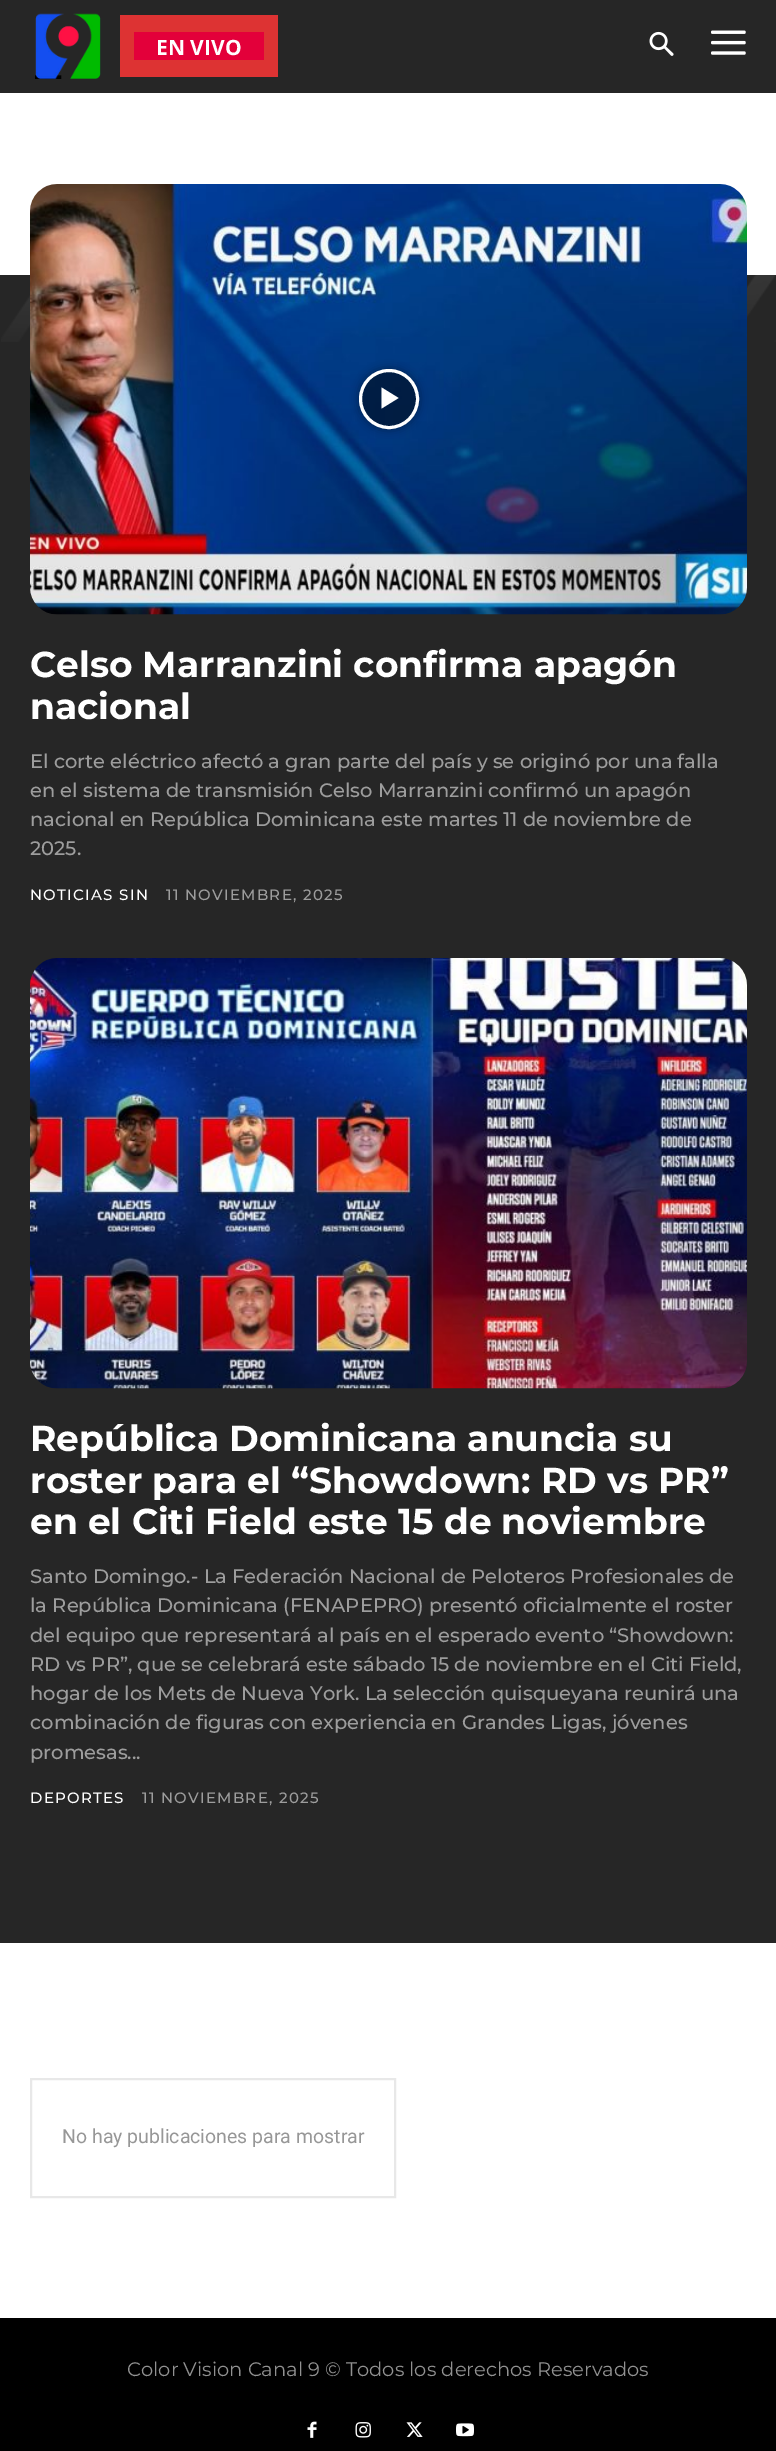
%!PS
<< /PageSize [776 2451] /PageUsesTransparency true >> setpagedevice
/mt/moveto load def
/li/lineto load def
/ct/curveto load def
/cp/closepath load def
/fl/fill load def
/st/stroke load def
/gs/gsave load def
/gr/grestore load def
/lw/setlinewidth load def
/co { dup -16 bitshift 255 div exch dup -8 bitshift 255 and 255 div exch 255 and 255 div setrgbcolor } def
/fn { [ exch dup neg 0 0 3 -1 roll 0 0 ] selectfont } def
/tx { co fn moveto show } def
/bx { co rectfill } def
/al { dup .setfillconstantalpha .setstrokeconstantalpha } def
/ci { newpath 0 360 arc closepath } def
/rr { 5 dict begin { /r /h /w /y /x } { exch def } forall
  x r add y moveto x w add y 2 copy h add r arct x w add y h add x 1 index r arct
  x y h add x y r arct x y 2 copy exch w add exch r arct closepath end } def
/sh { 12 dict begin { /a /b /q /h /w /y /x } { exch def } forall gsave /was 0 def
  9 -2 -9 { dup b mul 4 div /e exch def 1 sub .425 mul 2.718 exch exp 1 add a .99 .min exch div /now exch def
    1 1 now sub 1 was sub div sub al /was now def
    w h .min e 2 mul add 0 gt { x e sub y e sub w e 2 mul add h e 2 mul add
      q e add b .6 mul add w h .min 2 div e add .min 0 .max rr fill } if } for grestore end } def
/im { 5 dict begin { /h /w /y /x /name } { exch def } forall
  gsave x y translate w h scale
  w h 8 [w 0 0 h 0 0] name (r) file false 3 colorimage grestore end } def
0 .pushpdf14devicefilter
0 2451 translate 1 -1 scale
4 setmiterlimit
0 0 776 2451 16#FFFFFF bx
0.85 al
0 0 776 93 16#000000 bx
1 al
(media/1.raw) 35 13 66 66 im
120 15 158 62 16#DD3333 bx
134 32 130 28 16#E3003A bx
(media/2.raw) 649 31 25 25 im
(media/3.raw) 711 30 35 25 im
0 275 776 1668 16#262626 bx
(media/4.raw) 1 275 775 67 im
(media/5.raw) 30 184 717 431 im
gs
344 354 mt 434 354 li 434 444 li 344 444 li cp 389 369 mt 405.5 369 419 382.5 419 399 ct 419 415.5 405.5 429 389 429 ct 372.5 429 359 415.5 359 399 ct 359 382.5 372.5 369 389 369 ct cp eoclip newpath
16#000000 co
359 369 60 60 30 4.5 .4 sh
gr
0.48 al
16#000000 co
389 399 28.5 ci fl
1 al
16#FFFFFF co
3 lw
389 399 28.5 ci st
381.5 387.5 mt 381.5 408.5 li 398.5 398 li cp fl
(media/6.raw) 30 958 717 431 im
16#E8E8E8 co
2 lw
31 2079 364 118 rectstroke
0 2318 776 133 16#000000 bx
(media/7.raw) 307 2421 10 17 im
(media/8.raw) 355 2422 16 16 im
(media/9.raw) 406 2422 17 15 im
(media/10.raw) 456 2423 18 14 im
(EN VIVO) 156 55 /OpenSans-Bold 21 16#FFFFFF tx
(Celso Marranzini confirma apagón) 30 677 /Montserrat-Bold 36 16#FFFFFF tx
(nacional) 30 719 /Montserrat-Bold 36 16#FFFFFF tx
(El corte eléctrico afectó a gran parte del país y se originó por una falla) 30 768 /Montserrat-Medium 19.5 16#9D9D9D tx
(en el sistema de transmisión Celso Marranzini confirmó un apagón) 30 797 /Montserrat-Medium 19.5 16#9D9D9D tx
(nacional en República Dominicana este martes 11 de noviembre de) 30 826 /Montserrat-Medium 19.5 16#9D9D9D tx
(2025.) 30 855 /Montserrat-Medium 19.5 16#9D9D9D tx
/Montserrat-Medium 15 fn
16#FFFFFF co
30 900 mt 1.25 0 (NOTICIAS SIN) ashow
16#9D9D9D co
166 900 mt 1.25 0 (11 NOVIEMBRE, 2025) ashow
(República Dominicana anuncia su) 30 1451 /Montserrat-Bold 36 16#FFFFFF tx
(roster para el “Showdown: RD vs PR”) 30 1493 /Montserrat-Bold 36 16#FFFFFF tx
(en el Citi Field este 15 de noviembre) 30 1534 /Montserrat-Bold 36 16#FFFFFF tx
(Santo Domingo.- La Federación Nacional de Peloteros Profesionales de) 30 1583 /Montserrat-Medium 19.5 16#9D9D9D tx
(la República Dominicana \(FENAPEPRO\) presentó oficialmente el roster) 30 1612 /Montserrat-Medium 19.5 16#9D9D9D tx
(del equipo que representará al país en el esperado evento “Showdown:) 30 1642 /Montserrat-Medium 19.5 16#9D9D9D tx
(RD vs PR”, que se celebrará este sábado 15 de noviembre en el Citi Field,) 30 1671 /Montserrat-Medium 19.5 16#9D9D9D tx
(hogar de los Mets de Nueva York. La selección quisqueyana reunirá una) 30 1700 /Montserrat-Medium 19.5 16#9D9D9D tx
(combinación de figuras con experiencia en Grandes Ligas, jóvenes) 30 1729 /Montserrat-Medium 19.5 16#9D9D9D tx
(promesas...) 30 1759 /Montserrat-Medium 19.5 16#9D9D9D tx
/Montserrat-Medium 15 fn
16#FFFFFF co
30 1803 mt 1.25 0 (DEPORTES) ashow
16#9D9D9D co
142 1803 mt 1.25 0 (11 NOVIEMBRE, 2025) ashow
(No hay publicaciones para mostrar) 62 2143 /Roboto-Regular 19.5 16#979797 tx
(Color Vision Canal 9 © Todos los derechos Reservados) 127 2376 /Montserrat-Regular 19.5 16#919191 tx
.poppdf14devicefilter showpage
